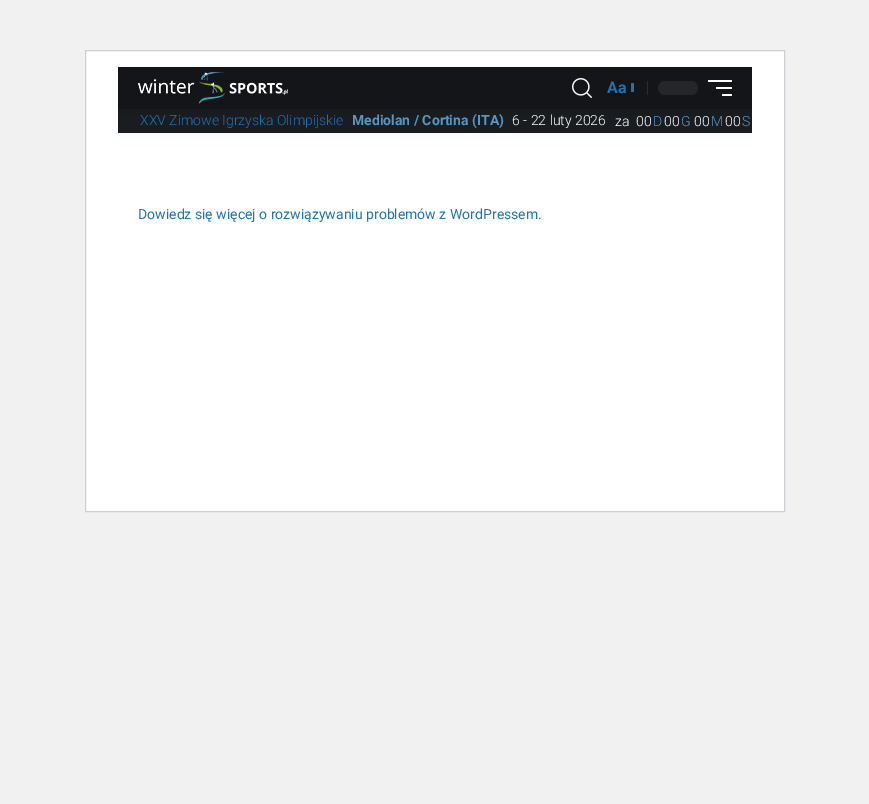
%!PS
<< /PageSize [869 804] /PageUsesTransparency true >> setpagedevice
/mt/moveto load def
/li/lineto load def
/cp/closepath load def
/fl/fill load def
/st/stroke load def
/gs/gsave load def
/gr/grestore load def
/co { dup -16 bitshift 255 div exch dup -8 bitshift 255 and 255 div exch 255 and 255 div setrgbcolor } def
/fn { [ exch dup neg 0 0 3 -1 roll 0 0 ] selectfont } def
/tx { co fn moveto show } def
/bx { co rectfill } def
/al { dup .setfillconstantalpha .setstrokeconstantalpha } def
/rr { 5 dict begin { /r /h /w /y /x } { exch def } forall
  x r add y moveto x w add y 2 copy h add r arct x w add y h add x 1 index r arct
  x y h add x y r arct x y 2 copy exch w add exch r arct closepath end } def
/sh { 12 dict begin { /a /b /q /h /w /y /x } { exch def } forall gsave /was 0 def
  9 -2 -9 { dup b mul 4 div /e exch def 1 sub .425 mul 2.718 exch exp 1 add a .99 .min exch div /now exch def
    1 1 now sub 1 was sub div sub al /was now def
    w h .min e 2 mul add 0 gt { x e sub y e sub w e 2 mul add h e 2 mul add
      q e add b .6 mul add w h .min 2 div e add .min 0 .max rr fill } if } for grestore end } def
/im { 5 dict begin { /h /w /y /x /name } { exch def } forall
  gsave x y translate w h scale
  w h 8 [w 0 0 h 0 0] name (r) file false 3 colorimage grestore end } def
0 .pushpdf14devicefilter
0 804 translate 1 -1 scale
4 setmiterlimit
0 0 869 804 16#F1F1F1 bx
16#FFFFFF co
85.5 50.5 mt 784.5 50.5 li 784.5 511.5 li 85.5 511.5 li cp gs fl gr
16#CCD0D4 co
st
118 109 634 24 16#191C20 bx
gs
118 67 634 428 rectclip
16#000000 co
118 71 634 42 0 15 .07 sh
gr
118 67 634 42 16#131518 bx
(media/1.raw) 138 72 150 32 im
(media/2.raw) 572 78 20 20 im
631 83 3 9 16#2271B1 bx
647 81 1 14 16#2B2C2F bx
16#252629 co
658 81 40 14 7 rr fl
16#FFFFFF co
708 80 24 2 1 rr fl
716 87 16 2 1 rr fl
722 94 10 2 1 rr fl
(Aa) 607 93 /Roboto-Bold 16 16#2271B1 tx
(XXV Zimowe Igrzyska Olimpijskie) 140 125 /Roboto-Light 14 16#2271B1 tx
(Mediolan / Cortina \(ITA\)) 352 125 /Roboto-Bold 14 16#5996C2 tx
(6 - 22 luty 2026) 512 125 /Roboto-Light 14 16#FFFFFF tx
(za) 615 126 /Roboto-Light 14 16#FFFFFF tx
(00) 636 126 /Roboto-Light 14 16#FFFFFF tx
16#5996C2 co
653 126 mt 1 0 (D) ashow
(00) 664 126 /Roboto-Light 14 16#FFFFFF tx
16#5996C2 co
681 126 mt 1 0 (G) ashow
(00) 694 126 /Roboto-Light 14 16#FFFFFF tx
16#5996C2 co
711 126 mt 1 0 (M) ashow
(00) 725 126 /Roboto-Light 14 16#FFFFFF tx
16#5996C2 co
742 126 mt 1 0 (S) ashow
(Dowiedz się więcej o rozwiązywaniu problemów z WordPressem.) 138 219 /Roboto-Regular 14 16#2271B1 tx
.poppdf14devicefilter showpage
